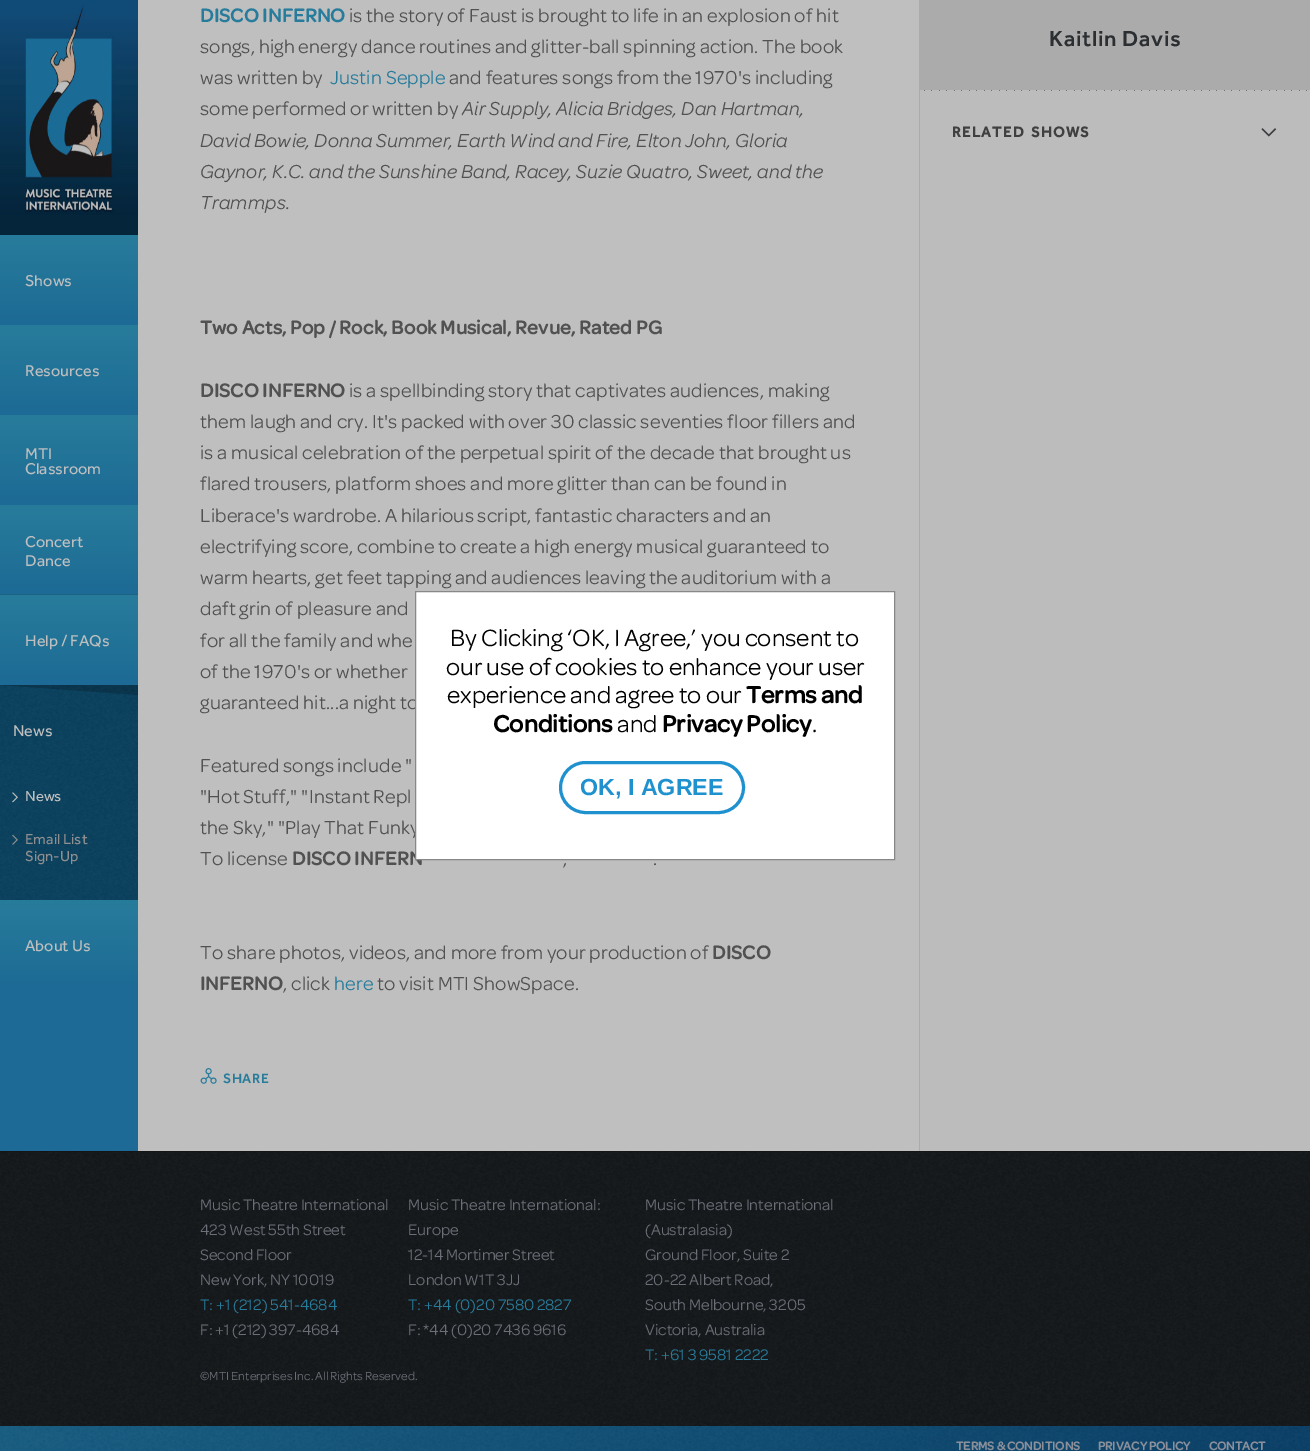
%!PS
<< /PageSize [1310 1451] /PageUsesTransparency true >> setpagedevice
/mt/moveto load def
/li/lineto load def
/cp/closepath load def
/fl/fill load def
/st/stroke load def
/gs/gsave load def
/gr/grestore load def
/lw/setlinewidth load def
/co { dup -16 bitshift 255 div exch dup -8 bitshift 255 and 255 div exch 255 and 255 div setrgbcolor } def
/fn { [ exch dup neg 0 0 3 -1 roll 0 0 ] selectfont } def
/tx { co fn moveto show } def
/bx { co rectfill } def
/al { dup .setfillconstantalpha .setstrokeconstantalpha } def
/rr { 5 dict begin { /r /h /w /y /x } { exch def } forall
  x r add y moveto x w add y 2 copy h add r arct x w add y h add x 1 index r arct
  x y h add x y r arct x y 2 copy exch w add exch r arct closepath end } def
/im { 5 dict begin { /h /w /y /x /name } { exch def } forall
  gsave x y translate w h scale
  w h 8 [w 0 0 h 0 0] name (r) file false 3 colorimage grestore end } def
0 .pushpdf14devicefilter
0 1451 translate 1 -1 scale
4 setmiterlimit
0 0 1310 1451 16#FFFFFF bx
(media/1.raw) 0 1426 1310 25 im
0 990 138 161 16#1C6A95 bx
(media/2.raw) 0 0 138 235 im
gs 0 235 mt 138 235 li 138 325 li 0 325 li cp clip newpath
<< /ShadingType 2 /ColorSpace /DeviceRGB /Coords [69 235 69 325] /Extend [true true] /Function << /FunctionType 2 /Domain [0 1] /C0 [.157 .486 .608] /C1 [.11 .416 .584] /N 1 >> >> shfill gr
gs 0 325 mt 138 325 li 138 415 li 0 415 li cp clip newpath
<< /ShadingType 2 /ColorSpace /DeviceRGB /Coords [69 325 69 415] /Extend [true true] /Function << /FunctionType 2 /Domain [0 1] /C0 [.157 .486 .608] /C1 [.11 .416 .584] /N 1 >> >> shfill gr
gs 0 415 mt 138 415 li 138 505 li 0 505 li cp clip newpath
<< /ShadingType 2 /ColorSpace /DeviceRGB /Coords [69 415 69 505] /Extend [true true] /Function << /FunctionType 2 /Domain [0 1] /C0 [.157 .486 .608] /C1 [.11 .416 .584] /N 1 >> >> shfill gr
gs 0 505 mt 138 505 li 138 594 li 0 594 li cp clip newpath
<< /ShadingType 2 /ColorSpace /DeviceRGB /Coords [69 505 69 594] /Extend [true true] /Function << /FunctionType 2 /Domain [0 1] /C0 [.157 .486 .608] /C1 [.11 .416 .584] /N 1 >> >> shfill gr
0 594 138 1 16#1C6283 bx
gs 0 595 mt 138 595 li 138 685 li 0 685 li cp clip newpath
<< /ShadingType 2 /ColorSpace /DeviceRGB /Coords [69 595 69 685] /Extend [true true] /Function << /FunctionType 2 /Domain [0 1] /C0 [.157 .486 .608] /C1 [.11 .416 .584] /N 1 >> >> shfill gr
0 685 138 215 16#0B3E59 bx
(media/3.raw) 0 685 138 90 im
(media/4.raw) 0 775 138 125 im
0.2 al
16#000000 co
138 685 mt 138 695 li 0 685 li cp fl
1 al
(media/5.raw) 12 792 6 11 im
(media/6.raw) 12 834 6 11 im
gs 0 900 mt 138 900 li 138 990 li 0 990 li cp clip newpath
<< /ShadingType 2 /ColorSpace /DeviceRGB /Coords [69 900 69 990] /Extend [true true] /Function << /FunctionType 2 /Domain [0 1] /C0 [.157 .486 .608] /C1 [.11 .416 .584] /N 1 >> >> shfill gr
138 0 781 1151 16#BFBFBF bx
(media/7.raw) 200 1068 17 16 im
919 0 391 90 16#ABABAB bx
920 90 390 1061 16#BCBCBC bx
919 90 1 1061 16#ABABAB bx
(media/8.raw) 924 90 383 1 im
(media/9.raw) 1261 128 16 9 im
0 1151 1310 275 16#16110E bx
(media/10.raw) 0 1151 1310 276 im
(Shows) 25 286 /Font-Regular 16.25 16#BFBFBF tx
(Resources) 25 376 /Font-Regular 16.25 16#BFBFBF tx
(MTI) 25 459 /Font-Regular 16.25 16#BFBFBF tx
(Classroom) 25 474 /Font-Regular 16.25 16#BFBFBF tx
(Concert) 25 547 /Font-Regular 16.25 16#BFBFBF tx
(Dance) 25 566 /Font-Regular 16.25 16#BFBFBF tx
(Help / FAQs) 25 646 /Font-Regular 16.25 16#BFBFBF tx
(News) 13 736 /Font-Regular 16.25 16#BFBFBF tx
(News) 25 801 /Font-Regular 15 16#BFBFBF tx
(Email List) 25 844 /Font-Regular 15 16#8F8F8F tx
(Sign-Up) 25 861 /Font-Regular 15 16#8F8F8F tx
(About Us) 25 951 /Font-Regular 16.25 16#BFBFBF tx
/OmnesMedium-Bold 20 fn
16#287C9B co
200 22 mt .2 0 (DISCO INFERNO) ashow
/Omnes-Regular 20 fn
16#515151 co
349 22 mt .2 0 (is the story of Faust is brought to life in an explosion of hit) ashow
200 53 mt .2 0 (songs, high energy dance routines and glitter-ball spinning action. The book) ashow
200 84 mt .2 0 (was written by) ashow
16#287C9B co
330 84 mt .2 0 (Justin Sepple) ashow
16#515151 co
449 84 mt .2 0 (and features songs from the 1970's including) ashow
200 115 mt .2 0 (some performed or written by) ashow
/Omnes-Italic 20 fn
462 115 mt .2 0 (Air Supply, Alicia Bridges, Dan Hartman,) ashow
200 147 mt .2 0 (David Bowie, Donna Summer, Earth Wind and Fire, Elton John, Gloria) ashow
200 178 mt .2 0 (Gaynor, K.C. and the Sunshine Band, Racey, Suzie Quatro, Sweet, and the) ashow
200 209 mt .2 0 (Trammps.) ashow
/OmnesMedium-Bold 20 fn
200 334 mt .2 0 (Two Acts, Pop / Rock, Book Musical, Revue, Rated PG) ashow
200 397 mt .2 0 (DISCO INFERNO) ashow
/Omnes-Regular 20 fn
349 397 mt .2 0 (is a spellbinding story that captivates audiences, making) ashow
200 428 mt .2 0 (them laugh and cry. It's packed with over 30 classic seventies floor fillers and) ashow
200 459 mt .2 0 (is a musical celebration of the perpetual spirit of the decade that brought us) ashow
200 490 mt .2 0 (flared trousers, platform shoes and more glitter than can be found in) ashow
200 522 mt .2 0 (Liberace's wardrobe. A hilarious script, fantastic characters and an) ashow
200 553 mt .2 0 (electrifying score, combine to create a high energy musical guaranteed to) ashow
200 584 mt .2 0 (warm hearts, get feet tapping and audiences leaving the auditorium with a) ashow
200 615 mt .2 0 (daft grin of pleasure and) ashow
200 647 mt .2 0 (for all the family and whe) ashow
200 678 mt .2 0 (of the 1970's or whether) ashow
200 709 mt .2 0 (guaranteed hit...a night to) ashow
200 772 mt .2 0 (Featured songs include ") ashow
200 803 mt .2 0 ("Hot Stuff," "Instant Repl) ashow
200 834 mt .2 0 (the Sky," "Play That Funky) ashow
200 865 mt .2 0 (To license) ashow
/OmnesMedium-Bold 20 fn
292 865 mt .2 0 (DISCO INFERN) ashow
/Omnes-Regular 20 fn
563 865 mt .2 0 (,) ashow
653 865 mt .2 0 (.) ashow
200 959 mt .2 0 (To share photos, videos, and more from your production of) ashow
/OmnesMedium-Bold 20 fn
712 959 mt .2 0 (DISCO) ashow
200 990 mt .2 0 (INFERNO) ashow
/Omnes-Regular 20 fn
283 990 mt .2 0 (, click) ashow
16#287C9B co
334 990 mt .2 0 (here) ashow
16#515151 co
377 990 mt .2 0 (to visit MTI ShowSpace.) ashow
/Font-Medium 14 fn
16#287C9B co
223 1083 mt .5 0 (SHARE) ashow
/Font-Medium 22.5 fn
16#2B2F32 co
1049 46 mt .75 0 (Kaitlin Davis) ashow
/Font-Bold 15 fn
16#404040 co
952 137 mt 2 0 32 1.25 0 (RELATED SHOWS) awidthshow
(Music Theatre International) 200 1210 /Omnes-Regular 16.25 16#6C6F77 tx
(423 West 55th Street) 200 1235 /Omnes-Regular 16.25 16#6C6F77 tx
(Second Floor) 200 1260 /Omnes-Regular 16.25 16#6C6F77 tx
(New York, NY 10019) 200 1285 /Omnes-Regular 16.25 16#6C6F77 tx
(T: +1 \(212\) 541-4684) 200 1310 /Omnes-Regular 16.25 16#287C9B tx
(F: +1 \(212\) 397-4684) 200 1335 /Omnes-Regular 16.25 16#6C6F77 tx
(Music Theatre International:) 408 1210 /Omnes-Regular 16.25 16#6C6F77 tx
(Europe) 408 1235 /Omnes-Regular 16.25 16#6C6F77 tx
(12-14 Mortimer Street) 408 1260 /Omnes-Regular 16.25 16#6C6F77 tx
(London W1T 3JJ) 408 1285 /Omnes-Regular 16.25 16#6C6F77 tx
(T: +44 \(0\)20 7580 2827) 408 1310 /Omnes-Regular 16.25 16#287C9B tx
(F: *44 \(0\)20 7436 9616) 408 1335 /Omnes-Regular 16.25 16#6C6F77 tx
(Music Theatre International) 645 1210 /Omnes-Regular 16.25 16#6C6F77 tx
(\(Australasia\)) 645 1235 /Omnes-Regular 16.25 16#6C6F77 tx
(Ground Floor, Suite 2) 645 1260 /Omnes-Regular 16.25 16#6C6F77 tx
(20-22 Albert Road,) 645 1285 /Omnes-Regular 16.25 16#6C6F77 tx
(South Melbourne, 3205) 645 1310 /Omnes-Regular 16.25 16#6C6F77 tx
(Victoria, Australia) 645 1335 /Omnes-Regular 16.25 16#6C6F77 tx
(T: +61 3 9581 2222) 645 1360 /Omnes-Regular 16.25 16#287C9B tx
(©MTI Enterprises Inc. All Rights Reserved.) 200 1380 /Omnes-Regular 12.5 16#6C6F77 tx
(TERMS & CONDITIONS) 956 1450 /OmnesMedium-Bold 12.5 16#8C909A tx
(PRIVACY POLICY) 1098 1450 /OmnesMedium-Bold 12.5 16#8C909A tx
(CONTACT) 1209 1450 /OmnesMedium-Bold 12.5 16#8C909A tx
16#FFFFFF co
415.5 591.5 mt 894.5 591.5 li 894.5 859.5 li 415.5 859.5 li cp gs fl gr
16#888888 co
st
(By Clicking ‘OK, I Agree,’ you consent to) 450 646 /Omnes-Regular 25 16#000000 tx
(our use of cookies to enhance your user) 446 675 /Omnes-Regular 25 16#000000 tx
(experience and agree to our) 447 703 /Omnes-Regular 25 16#000000 tx
(Terms and) 746 703 /OmnesMedium-Bold 25 16#000000 tx
(Conditions) 493 732 /OmnesMedium-Bold 25 16#000000 tx
(and) 617 732 /Omnes-Regular 25 16#000000 tx
(Privacy Policy) 662 732 /OmnesMedium-Bold 25 16#000000 tx
(.) 812 732 /Omnes-Regular 25 16#000000 tx
16#1E91CE co
3 lw
560.5 762.5 183 50 25 rr st
(OK, I AGREE) 580 795 /LiberationSans-Bold 23.25 16#1E91CE tx
.poppdf14devicefilter showpage
